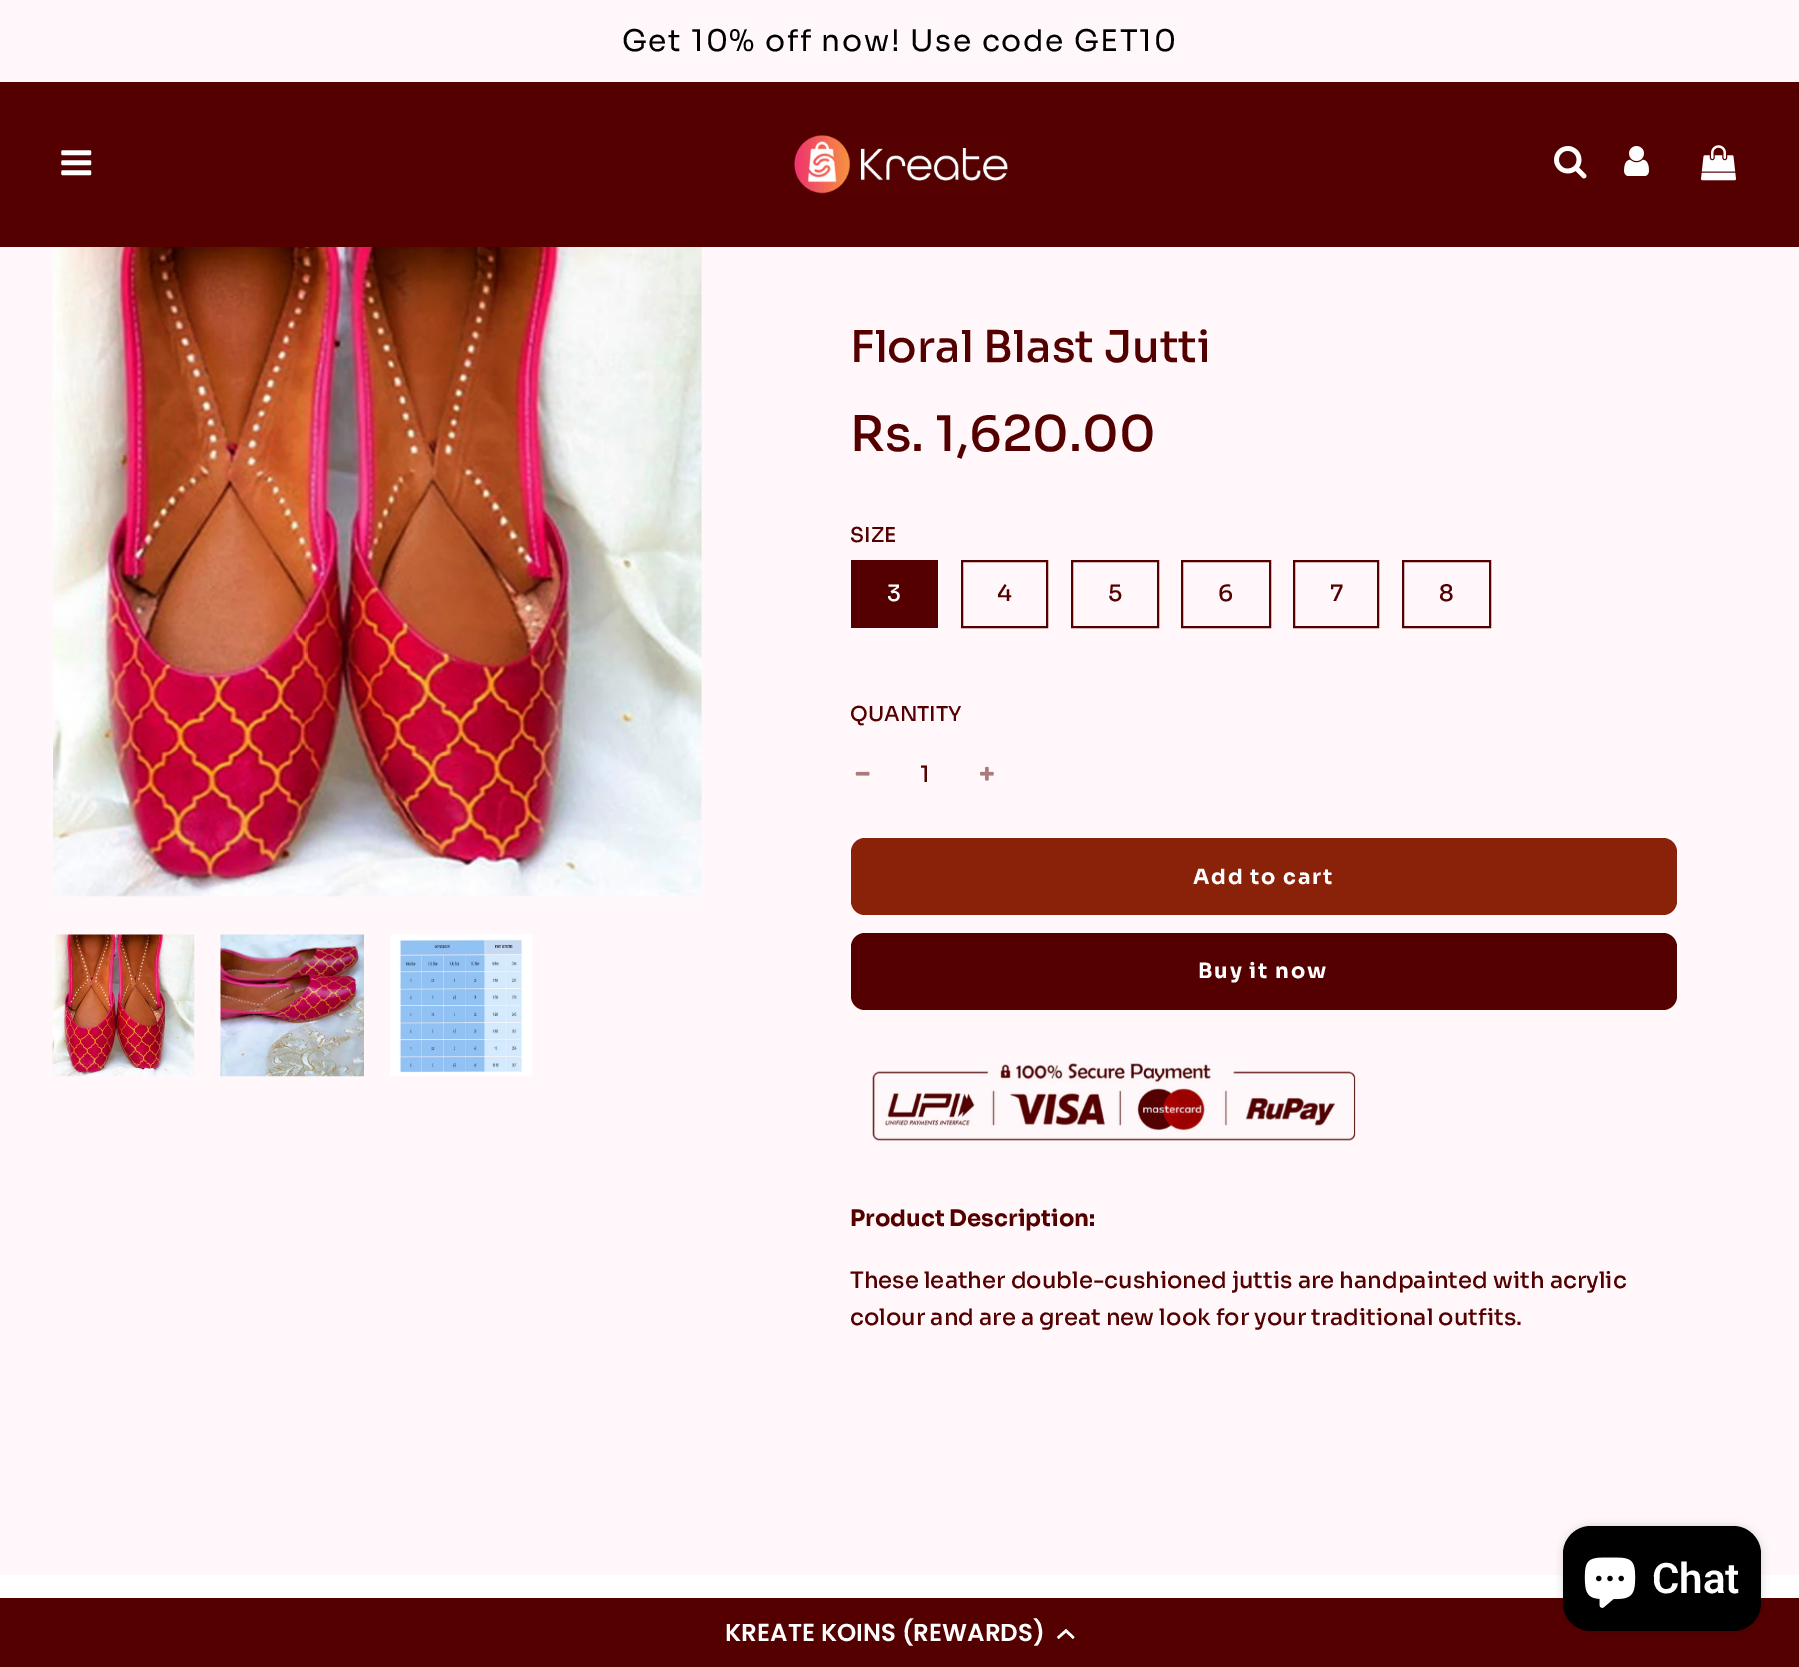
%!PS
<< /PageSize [1799 1667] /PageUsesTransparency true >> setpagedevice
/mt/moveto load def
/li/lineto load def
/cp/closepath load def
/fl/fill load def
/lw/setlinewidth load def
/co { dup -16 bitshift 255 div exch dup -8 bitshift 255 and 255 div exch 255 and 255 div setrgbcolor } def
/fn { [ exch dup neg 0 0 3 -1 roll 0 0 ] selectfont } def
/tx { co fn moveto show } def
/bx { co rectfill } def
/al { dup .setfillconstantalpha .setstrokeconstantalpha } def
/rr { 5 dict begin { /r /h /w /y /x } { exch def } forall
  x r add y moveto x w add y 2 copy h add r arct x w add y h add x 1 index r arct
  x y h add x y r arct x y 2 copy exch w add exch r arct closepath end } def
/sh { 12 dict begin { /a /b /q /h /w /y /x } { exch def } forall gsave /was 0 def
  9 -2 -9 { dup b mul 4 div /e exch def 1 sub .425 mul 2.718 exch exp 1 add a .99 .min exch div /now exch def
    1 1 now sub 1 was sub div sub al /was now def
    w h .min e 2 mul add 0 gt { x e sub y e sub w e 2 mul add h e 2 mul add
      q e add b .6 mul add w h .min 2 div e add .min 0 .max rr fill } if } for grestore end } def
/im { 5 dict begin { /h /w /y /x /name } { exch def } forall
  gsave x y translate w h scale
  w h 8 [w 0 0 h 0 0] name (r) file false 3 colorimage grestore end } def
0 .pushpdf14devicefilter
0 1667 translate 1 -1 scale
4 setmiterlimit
0 0 1799 1667 16#FFF7F9 bx
0 82 1799 165 16#540000 bx
(media/1.raw) 61 150 31 26 im
(media/2.raw) 793 135 216 60 im
(media/3.raw) 1554 146 33 33 im
(media/4.raw) 1624 146 25 30 im
(media/5.raw) 1701 145 35 36 im
(media/6.raw) 53 247 649 650 im
(media/7.raw) 52 934 143 143 im
(media/8.raw) 220 934 144 143 im
(media/9.raw) 390 934 142 142 im
851 560 87 68 16#540000 bx
2 lw
962 561 85 66 rectstroke
1072 561 86 66 rectstroke
1182 561 88 66 rectstroke
1294 561 84 66 rectstroke
1403 561 87 66 rectstroke
(media/10.raw) 855 771 15 5 im
(media/11.raw) 980 766 14 15 im
16#892208 co
851 838 826 77 14 rr fl
16#540000 co
851 933 826 77 14 rr fl
(media/12.raw) 872 1062 484 79 im
0 1575 1799 23 16#FFFFFF bx
0 1598 1799 69 16#540000 bx
16#000000 co
1563 1526 198 105 28 4.5 .15 sh
1563 1526 198 105 28 rr fl
(media/13.raw) 1584 1557 52 51 im
16#FFFFFF co
1066 1632.5 mt 1058.5 1639 li 1057 1637 li 1066 1629 li 1074.5 1637 li 1073 1639 li cp fl
/Sora-Regular 29.75 fn
16#000000 co
622 51 mt 1.75 0 (Get 10% off now! Use code GET10) ashow
(Floral Blast Jutti) 850 362 /Sora-Medium 43.75 16#540000 tx
(Rs. 1,620.00) 850 451 /Sora-Medium 49 16#540000 tx
(SIZE) 850 542 /Sora-Medium 20.5 16#540000 tx
(3) 887 601 /Sora-Medium 22.75 16#FFFFFF tx
(4) 997 601 /Sora-Medium 22.75 16#540000 tx
(5) 1108 601 /Sora-Medium 22.75 16#540000 tx
(6) 1218 601 /Sora-Medium 22.75 16#540000 tx
(7) 1330 601 /Sora-Medium 22.75 16#540000 tx
(8) 1439 601 /Sora-Medium 22.75 16#540000 tx
(QUANTITY) 850 721 /Sora-Medium 20.5 16#540000 tx
(1) 920 782 /Sora-Medium 22.75 16#540000 tx
/Sora-Bold 21 fn
16#FFFFFF co
1193 884 mt 1.75 0 (Add to cart) ashow
1198 978 mt 1.75 0 (Buy it now) ashow
(Product Description:) 850 1226 /Sora-Bold 22.75 16#540000 tx
(These leather double-cushioned juttis are handpainted with acrylic) 850 1288 /Sora-Medium 22.75 16#540000 tx
(colour and are a great new look for your traditional outfits.) 850 1325 /Sora-Medium 22.75 16#540000 tx
(Chat) 1652 1593 /Roboto-SemiBold 42 16#FFFFFF tx
(KREATE KOINS \(REWARDS\)) 725 1641 /Poppins-SemiBold 24.5 16#FFFFFF tx
.poppdf14devicefilter showpage
